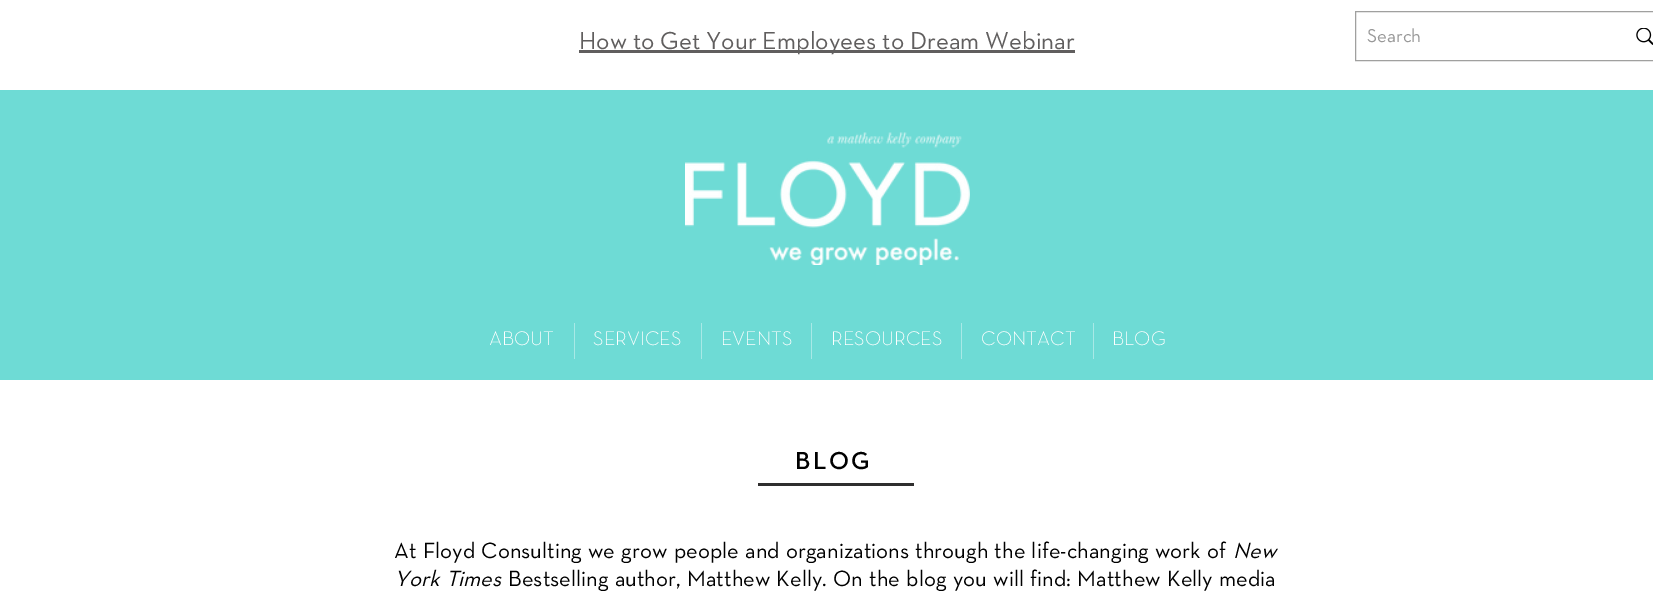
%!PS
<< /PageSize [1653 608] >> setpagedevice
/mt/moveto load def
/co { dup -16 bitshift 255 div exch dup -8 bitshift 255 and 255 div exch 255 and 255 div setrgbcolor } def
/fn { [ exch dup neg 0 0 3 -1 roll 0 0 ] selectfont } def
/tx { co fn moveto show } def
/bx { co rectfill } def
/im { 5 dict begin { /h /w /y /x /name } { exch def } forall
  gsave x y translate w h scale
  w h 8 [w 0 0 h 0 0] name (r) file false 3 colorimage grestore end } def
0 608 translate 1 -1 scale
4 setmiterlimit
0 0 1653 608 16#FFFFFF bx
579 50 496 3 16#605E5E bx
16#A0A09F co
1355.5 11.5 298 49 rectstroke
(media/1.raw) 1636 28 17 17 im
0 90 1653 290 16#6EDBD5 bx
(media/2.raw) 685 132 285 133 im
574 323 1 36 16#A8E9E6 bx
701 323 1 36 16#A8E9E6 bx
811 323 1 36 16#A8E9E6 bx
961 323 1 36 16#A8E9E6 bx
1093 323 1 36 16#A8E9E6 bx
758 483 156 3 16#2F2E2E bx
(How to Get Your Employees to Dream Webinar) 579 49 /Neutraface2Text-Regular 25 16#605E5E tx
(Search) 1367 42 /Neutraface2Text-Regular 19 16#999999 tx
(ABOUT) 489 345 /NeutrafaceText-Light 20 16#FFFFFF tx
(SERVICES) 593 345 /NeutrafaceText-Light 20 16#FFFFFF tx
(EVENTS) 721 345 /NeutrafaceText-Light 20 16#FFFFFF tx
(RESOURCES) 831 345 /NeutrafaceText-Light 20 16#FFFFFF tx
(CONTACT) 981 345 /NeutrafaceText-Light 20 16#FFFFFF tx
(BLOG) 1112 345 /NeutrafaceText-Light 20 16#FFFFFF tx
/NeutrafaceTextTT-SemiBold 25 fn
16#000000 co
795 469 mt 2.5 0 (BLOG) ashow
/NeutrafaceText-Regular 22.5 fn
394 558 mt .9 0 32 (At Floyd Consulting we grow people and organizations through the life-changing work of) widthshow
(New) 1233 558 /NeutrafaceText-Italic 22.5 16#000000 tx
394 586 mt 1 0 32 (York Times) widthshow
/NeutrafaceText-Regular 22.5 fn
508 586 mt 1 0 32 (Bestselling author, Matthew Kelly. On the blog you will find: Matthew Kelly media) widthshow
showpage
